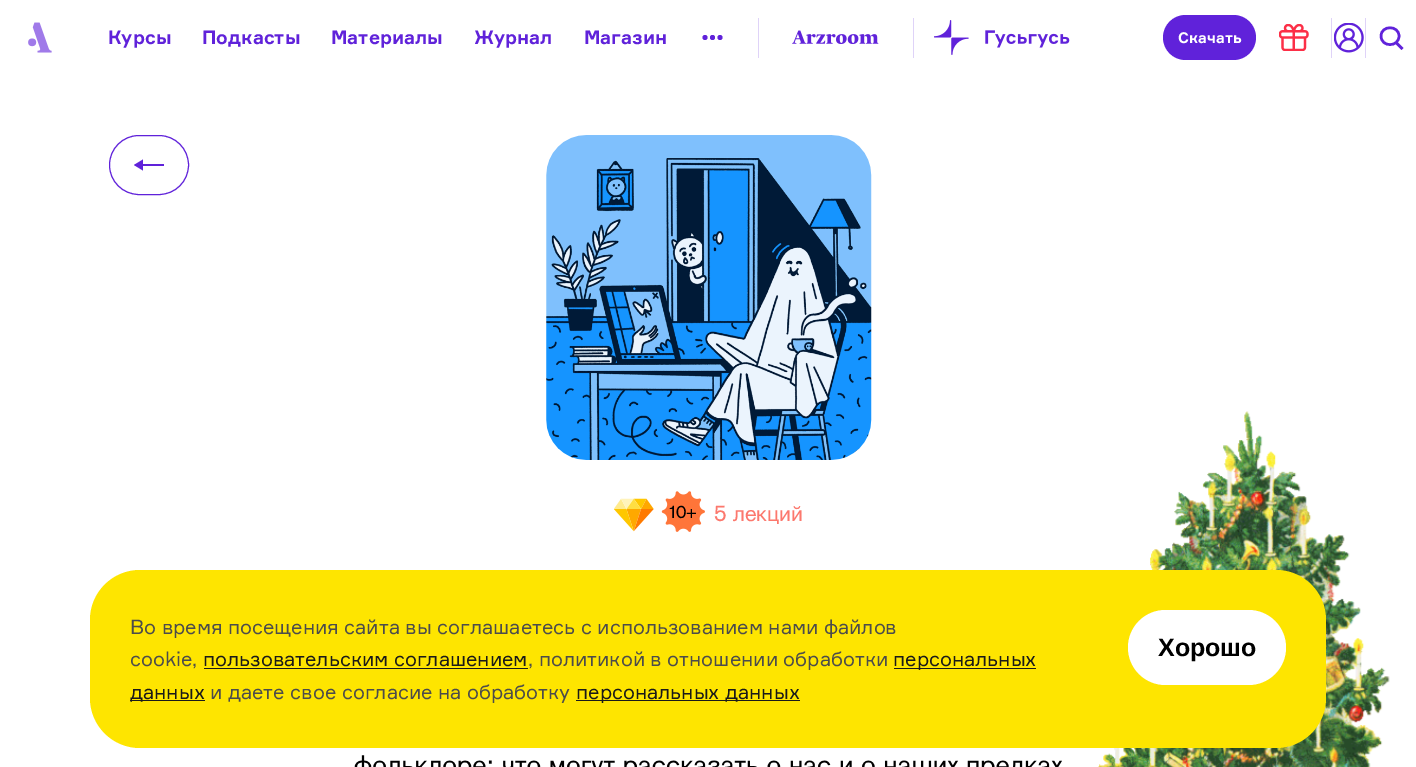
%!PS
<< /PageSize [1416 767] >> setpagedevice
/mt/moveto load def
/li/lineto load def
/ct/curveto load def
/cp/closepath load def
/fl/fill load def
/st/stroke load def
/lw/setlinewidth load def
/co { dup -16 bitshift 255 div exch dup -8 bitshift 255 and 255 div exch 255 and 255 div setrgbcolor } def
/fn { [ exch dup neg 0 0 3 -1 roll 0 0 ] selectfont } def
/tx { co fn moveto show } def
/bx { co rectfill } def
/ci { newpath 0 360 arc closepath } def
/rr { 5 dict begin { /r /h /w /y /x } { exch def } forall
  x r add y moveto x w add y 2 copy h add r arct x w add y h add x 1 index r arct
  x y h add x y r arct x y 2 copy exch w add exch r arct closepath end } def
/im { 5 dict begin { /h /w /y /x /name } { exch def } forall
  gsave x y translate w h scale
  w h 8 [w 0 0 h 0 0] name (r) file false 3 colorimage grestore end } def
0 767 translate 1 -1 scale
4 setmiterlimit
0 0 1416 767 16#FFFFFF bx
(media/1.raw) 28 22 24 31 im
16#6022DA co
720 37.5 2.5 ci fl
712.5 37.5 2.5 ci fl
705 37.5 2.5 ci fl
(media/2.raw) 792 30 87 14 im
758 18 1 40 16#DFD3F8 bx
(media/3.raw) 934 20 136 35 im
913 18 1 40 16#DFD3F8 bx
16#6022DA co
1163 15 93 45 22.5 rr fl
(media/4.raw) 1279 24 30 27 im
1331 18 1 40 16#DFD3F8 bx
(media/5.raw) 1334 23 30 30 im
1365 18 1 40 16#DFD3F8 bx
16#6022DA co
2.5 lw
1396 42.5 mt 1402.5 49 li 1399 36 mt 1399 47.5 1381 47.5 1381 36 ct 1381 25 1399 25 1399 36 ct cp st
1 lw
109.5 135.5 79 59 29.5 rr st
134 165 mt 143 159.5 li 143 170.5 li cp 164 166 mt 142 166 li 142 164 li 164 164 li cp fl
(media/6.raw) 546 135 326 325 im
(media/7.raw) 614 498 40 34 im
(media/8.raw) 661 491 44 41 im
(media/9.raw) 354 755 708 12 im
(media/10.raw) 1098 411 292 356 im
16#FEE500 co
90 570 1236 178 50 rr fl
204 668 324 1 16#1A1A1A bx
894 668 142 1 16#1A1A1A bx
130 700 75 1 16#1A1A1A bx
576 700 224 1 16#1A1A1A bx
16#FFFFFF co
1128 610 158 75 37.5 rr fl
(Курсы) 108 44 /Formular-Bold 18.75 16#6022DA tx
(Подкасты) 202 44 /Formular-Bold 18.75 16#6022DA tx
(Материалы) 331 44 /Formular-Bold 18.75 16#6022DA tx
(Журнал) 474 44 /Formular-Bold 18.75 16#6022DA tx
(Магазин) 584 44 /Formular-Bold 18.75 16#6022DA tx
(Скачать) 1178 43 /Formular-Bold 15 16#FFFFFF tx
(10+) 669 518 /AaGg-Regular 18 16#000000 tx
(5 лекций) 714 521 /AaGg-Regular 22.5 16#FC786D tx
(Во время посещения сайта вы соглашаетесь с использованием нами файлов) 130 634 /Formular-Regular 20 16#4C4C4C tx
(cookie,) 130 666 /Formular-Regular 20 16#4C4C4C tx
(пользовательским соглашением) 203 666 /Formular-Regular 20 16#1A1A1A tx
(, политикой в отношении обработки) 528 666 /Formular-Regular 20 16#4C4C4C tx
(персональных) 893 666 /Formular-Regular 20 16#1A1A1A tx
(данных) 130 699 /Formular-Regular 20 16#1A1A1A tx
(и даете свое согласие на обработку) 210 699 /Formular-Regular 20 16#4C4C4C tx
(персональных данных) 576 699 /Formular-Regular 20 16#1A1A1A tx
(Хорошо) 1158 656 /LiberationSans-Bold 25 16#000000 tx
showpage
